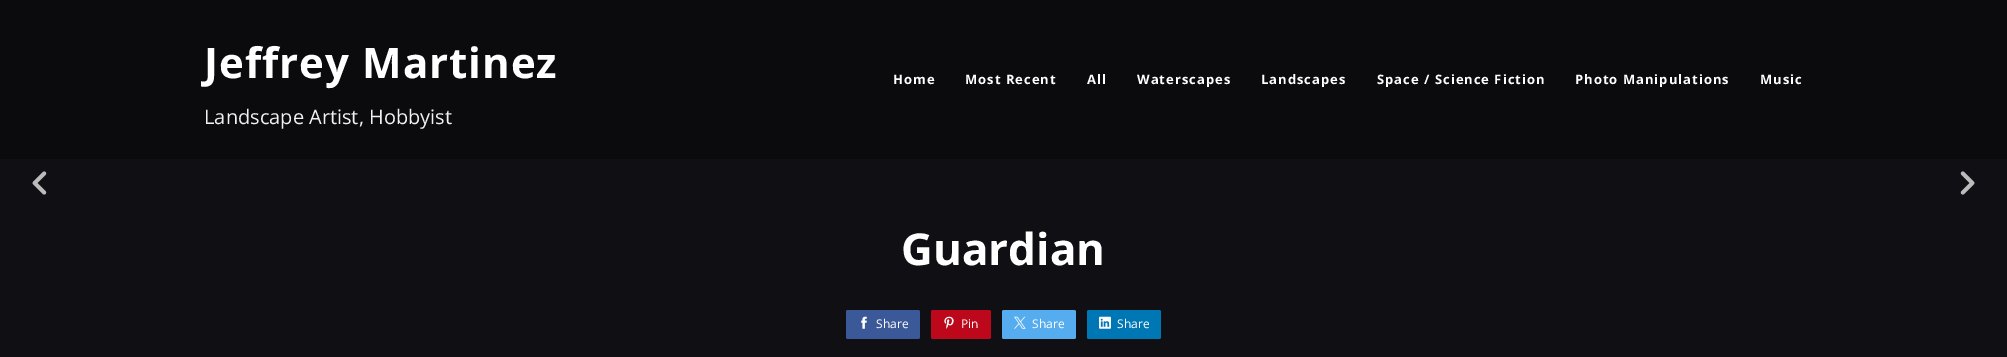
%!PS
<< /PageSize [2007 357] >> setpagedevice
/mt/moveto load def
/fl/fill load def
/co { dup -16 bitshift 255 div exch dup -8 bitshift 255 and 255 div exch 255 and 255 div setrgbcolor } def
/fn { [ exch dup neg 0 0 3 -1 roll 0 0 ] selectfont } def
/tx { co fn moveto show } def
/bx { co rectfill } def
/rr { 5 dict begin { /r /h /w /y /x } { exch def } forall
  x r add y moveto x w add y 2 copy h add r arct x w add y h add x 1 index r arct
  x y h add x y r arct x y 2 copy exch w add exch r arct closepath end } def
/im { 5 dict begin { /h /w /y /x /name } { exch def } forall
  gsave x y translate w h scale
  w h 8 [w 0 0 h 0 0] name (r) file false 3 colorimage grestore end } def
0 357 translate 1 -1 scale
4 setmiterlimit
0 0 2007 357 16#101014 bx
0 0 2007 159 16#0B0B0E bx
(media/1.raw) 32 171 15 24 im
(media/2.raw) 1960 171 15 24 im
16#3B5999 co
846 310 74 29 2 rr fl
(media/3.raw) 861 316 6 13 im
16#BD081C co
931 310 60 29 2 rr fl
(media/4.raw) 944 316 10 13 im
16#55ACEE co
1002 310 74 29 2 rr fl
(media/5.raw) 1014 316 12 13 im
16#0077B5 co
1087 310 74 29 2 rr fl
(media/6.raw) 1099 316 12 13 im
/OpenSans-Bold 42 fn
16#FFFFFF co
204 78 mt 1 0 (Jeffrey Martinez) ashow
(Landscape Artist, Hobbyist) 204 124 /OpenSans-Regular 20 16#F1F1F1 tx
/OpenSans-Bold 13 fn
16#FFFFFF co
893 84 mt 1 0 (Home) ashow
965 84 mt 1 0 (Most Recent) ashow
1087 84 mt 1 0 (All) ashow
1137 84 mt 1 0 (Waterscapes) ashow
1261 84 mt 1 0 (Landscapes) ashow
1377 84 mt 1 0 (Space / Science Fiction) ashow
1575 84 mt 1 0 (Photo Manipulations) ashow
1760 84 mt 1 0 (Music) ashow
(Guardian) 901 265 /OpenSans-Bold 44 16#FFFFFF tx
(Share) 876 328 /OpenSans-Regular 12 16#FFFFFF tx
(Pin) 961 328 /OpenSans-Regular 12 16#FFFFFF tx
(Share) 1032 328 /OpenSans-Regular 12 16#FFFFFF tx
(Share) 1117 328 /OpenSans-Regular 12 16#FFFFFF tx
showpage
